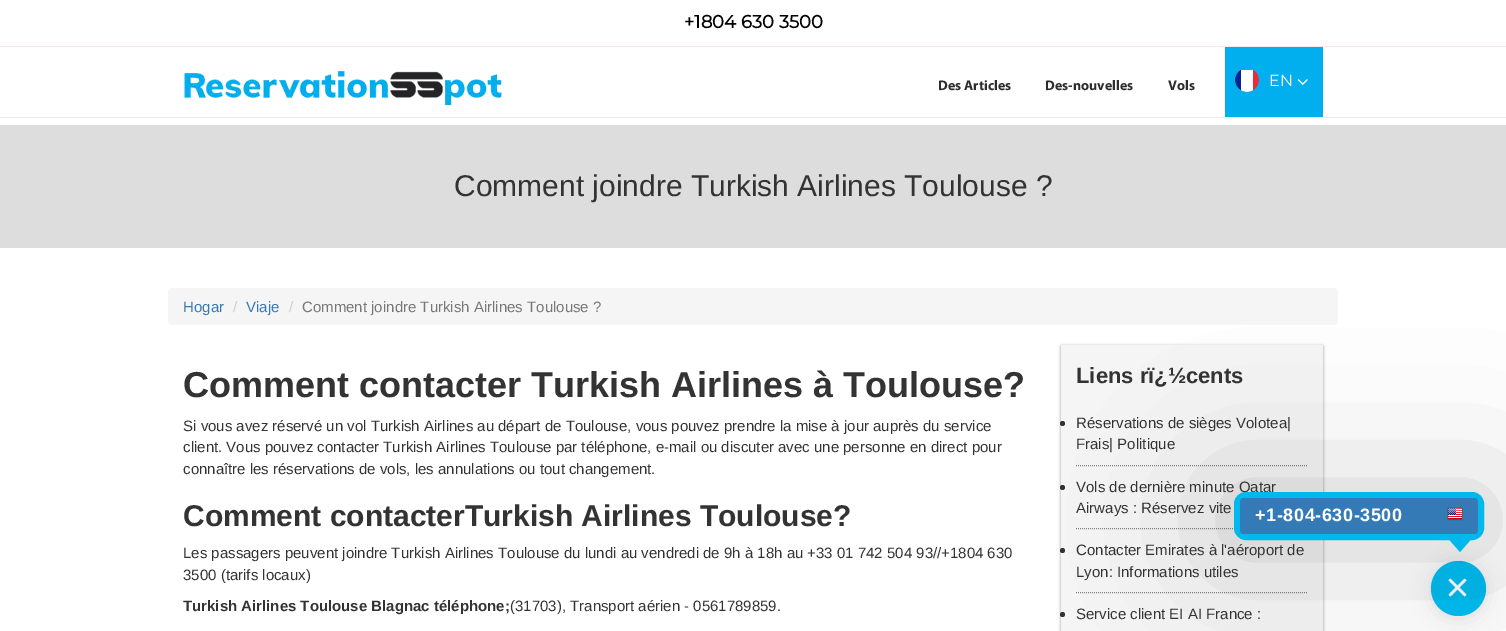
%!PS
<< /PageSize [1506 631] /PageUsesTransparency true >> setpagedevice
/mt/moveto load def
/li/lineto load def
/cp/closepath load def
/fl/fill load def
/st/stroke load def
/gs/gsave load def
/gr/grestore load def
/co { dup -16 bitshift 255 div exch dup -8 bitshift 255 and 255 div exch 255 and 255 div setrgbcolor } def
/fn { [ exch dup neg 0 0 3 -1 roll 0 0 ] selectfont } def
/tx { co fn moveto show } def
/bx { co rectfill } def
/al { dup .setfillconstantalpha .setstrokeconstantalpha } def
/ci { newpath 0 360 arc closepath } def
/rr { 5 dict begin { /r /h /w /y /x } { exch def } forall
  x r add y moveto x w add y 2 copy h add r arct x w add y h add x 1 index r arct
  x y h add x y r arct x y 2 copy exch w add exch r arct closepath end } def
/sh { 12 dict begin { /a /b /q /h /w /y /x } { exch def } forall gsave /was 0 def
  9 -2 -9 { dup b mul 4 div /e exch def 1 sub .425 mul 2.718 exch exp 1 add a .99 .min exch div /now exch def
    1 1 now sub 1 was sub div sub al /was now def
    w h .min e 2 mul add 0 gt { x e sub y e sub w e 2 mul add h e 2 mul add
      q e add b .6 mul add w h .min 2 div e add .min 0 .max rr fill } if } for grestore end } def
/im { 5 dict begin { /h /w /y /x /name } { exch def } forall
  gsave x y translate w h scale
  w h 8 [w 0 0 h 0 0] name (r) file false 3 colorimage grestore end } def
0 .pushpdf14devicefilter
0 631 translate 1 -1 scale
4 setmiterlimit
0 0 1506 631 16#FFFFFF bx
0 117 1506 1 16#ECECEC bx
0 46 1506 1 16#EFE9E9 bx
(media/1.raw) 184 71 318 34 im
1225 47 98 70 16#01AEEE bx
(media/2.raw) 1235 70 24 22 im
(media/3.raw) 1297 79 11 6 im
0 125 1506 123 16#DDDDDD bx
16#F5F5F5 co
168 288 1170 37 4 rr fl
16#9D9D9D co
1061 346 262 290 0 1.5 1 sh
1061 345 262 286 16#F5F5F5 bx
16#7F7F7F co
[1 1] 0 setdash
1076 465.5 mt 1308 465.5 li st
16#333333 co
1062.5 423.5 2.5 ci fl
16#7F7F7F co
1076 528.5 mt 1308 528.5 li st
16#333333 co
1062.5 487.5 2.5 ci fl
16#7F7F7F co
1076 592.5 mt 1308 592.5 li st
16#333333 co
1062.5 550.5 2.5 ci fl
1062.5 614.5 2.5 ci fl
16#000000 co
1431 563 55 55 27.5 10 .1 sh
16#00BBF0 co
1458.5 588.5 27.5 ci fl
(media/5.raw) 1448 578 19 19 im
16#000000 co
1234 496 250 48 12 75 .2 sh
(+1804 630 3500) 684 28 /Montserrat-Bold 18 16#000000 tx
(Des Articles) 938 90 /Myriad-Bold 14 16#2D2D2D tx
(Des-nouvelles) 1045 90 /Myriad-Bold 14 16#2D2D2D tx
(Vols) 1168 90 /Myriad-Bold 14 16#2D2D2D tx
(EN) 1269 86 /Montserrat-Regular 16 16#FFFFFF tx
(Comment joindre Turkish Airlines Toulouse ?) 454 196 /LiberationSans-Regular 30 16#333333 tx
(Hogar) 183 312 /LiberationSans-Regular 15 16#337AB7 tx
(/) 233 312 /LiberationSans-Regular 15 16#CCCCCC tx
(Viaje) 246 312 /LiberationSans-Regular 15 16#337AB7 tx
(/) 289 312 /LiberationSans-Regular 15 16#CCCCCC tx
(Comment joindre Turkish Airlines Toulouse ?) 302 312 /LiberationSans-Regular 15 16#777777 tx
(Comment contacter Turkish Airlines à Toulouse?) 183 397 /LiberationSans-Bold 36 16#333333 tx
(Si vous avez réservé un vol Turkish Airlines au départ de Toulouse, vous pouvez prendre la mise à jour auprès du service) 183 431 /LiberationSans-Regular 15 16#333333 tx
(client. Vous pouvez contacter Turkish Airlines Toulouse par téléphone, e-mail ou discuter avec une personne en direct pour) 183 452 /LiberationSans-Regular 15 16#333333 tx
(connaître les réservations de vols, les annulations ou tout changement.) 183 474 /LiberationSans-Regular 15 16#333333 tx
(Comment contacterTurkish Airlines Toulouse?) 183 526 /LiberationSans-Bold 30 16#333333 tx
(Les passagers peuvent joindre Turkish Airlines Toulouse du lundi au vendredi de 9h à 18h au +33 01 742 504 93//+1804 630) 183 558 /LiberationSans-Regular 15 16#333333 tx
(3500 \(tarifs locaux\)) 183 580 /LiberationSans-Regular 15 16#333333 tx
(Turkish Airlines Toulouse Blagnac téléphone;) 183 611 /LiberationSans-Bold 15 16#333333 tx
(\(31703\), Transport aérien - 0561789859.) 510 611 /LiberationSans-Regular 15 16#333333 tx
(Liens rï¿½cents) 1076 383 /LiberationSans-Bold 22 16#333333 tx
(Réservations de sièges Volotea|) 1076 428 /LiberationSans-Regular 15 16#333333 tx
(Frais| Politique) 1076 449 /LiberationSans-Regular 15 16#333333 tx
(Vols de dernière minute Qatar) 1076 492 /LiberationSans-Regular 15 16#333333 tx
(Airways : Réservez vite) 1076 513 /LiberationSans-Regular 15 16#333333 tx
(Contacter Emirates à l'aéroport de) 1076 555 /LiberationSans-Regular 15 16#333333 tx
(Lyon: Informations utiles) 1076 577 /LiberationSans-Regular 15 16#333333 tx
(Service client EI AI France :) 1076 619 /LiberationSans-Regular 15 16#333333 tx
16#00B8EC co
1234.5 492.5 249 47 11.5 rr gs fl gr
[] 0 setdash
st
16#337AB7 co
1240 498 238 36 4 rr fl
/LiberationSans-Bold 18 fn
16#FFFFFF co
1255 521 mt .6 0 (+1-804-630-3500) ashow
(media/4.raw) 1447 507 16 14 im
16#00B8EC co
1447 537 mt 1473 537 li 1460 552 li cp fl
.poppdf14devicefilter showpage
